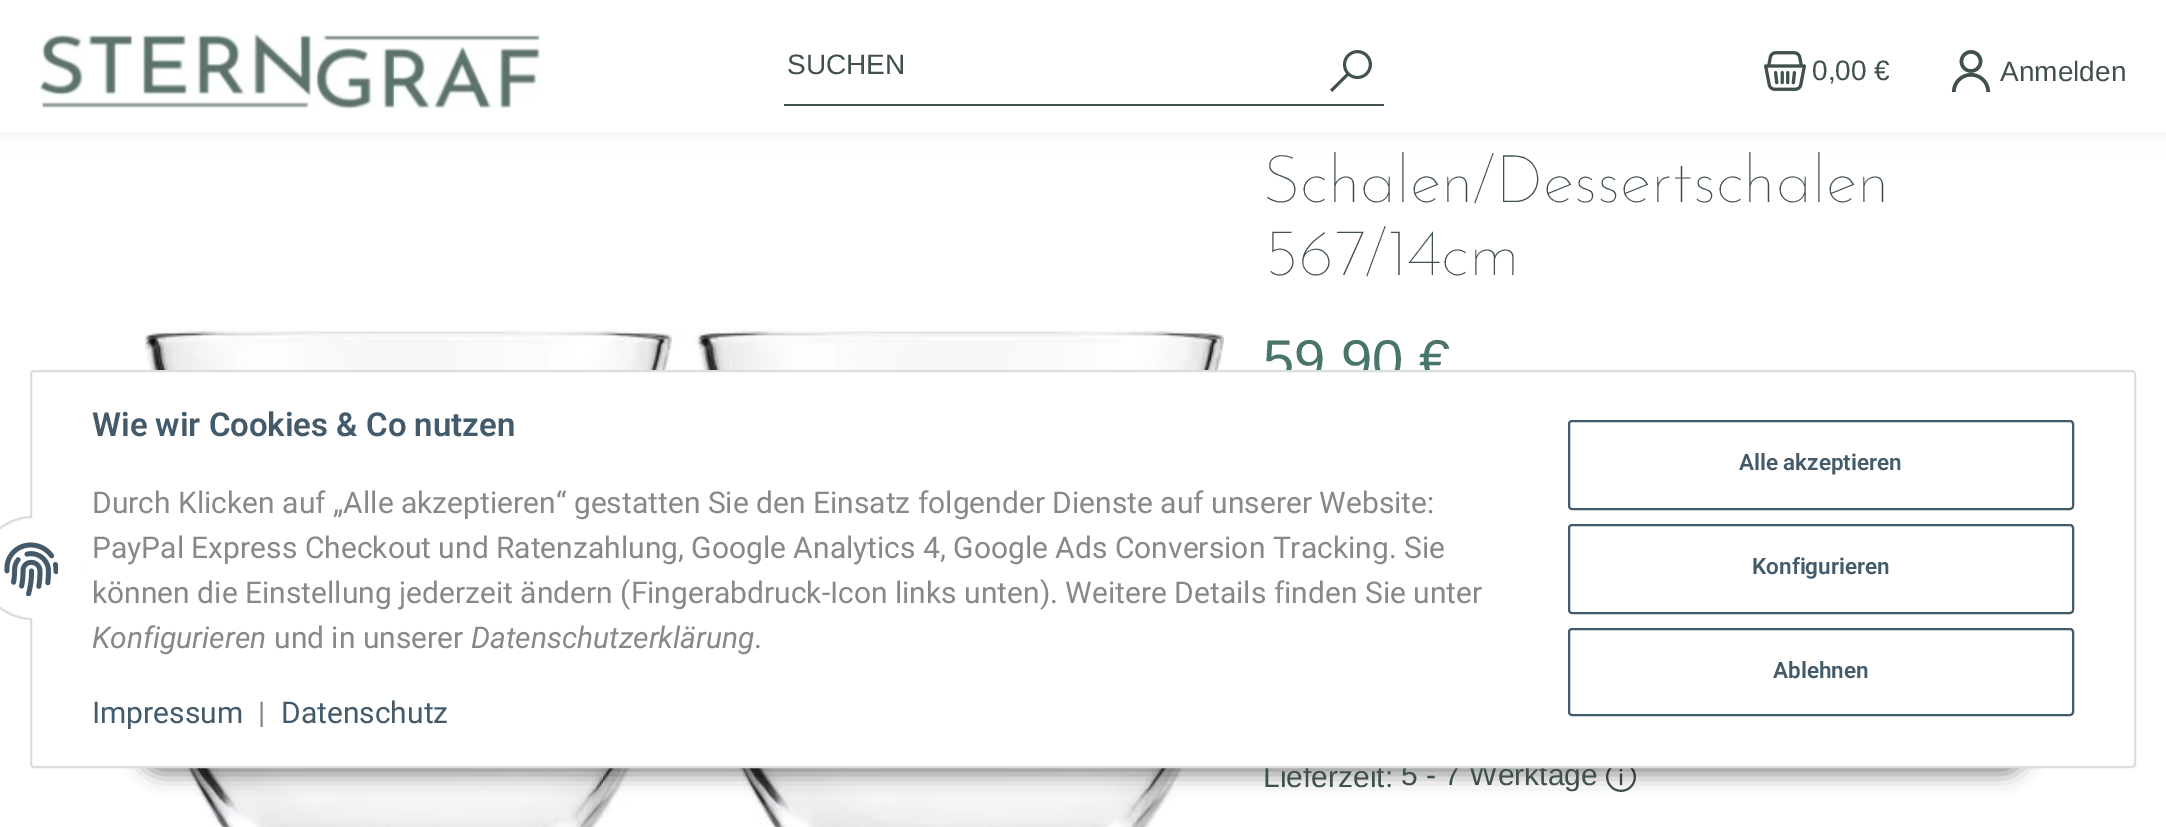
%!PS
<< /PageSize [2166 827] /PageUsesTransparency true >> setpagedevice
/fl/fill load def
/st/stroke load def
/gs/gsave load def
/gr/grestore load def
/lw/setlinewidth load def
/co { dup -16 bitshift 255 div exch dup -8 bitshift 255 and 255 div exch 255 and 255 div setrgbcolor } def
/fn { [ exch dup neg 0 0 3 -1 roll 0 0 ] selectfont } def
/tx { co fn moveto show } def
/bx { co rectfill } def
/al { dup .setfillconstantalpha .setstrokeconstantalpha } def
/ci { newpath 0 360 arc closepath } def
/rr { 5 dict begin { /r /h /w /y /x } { exch def } forall
  x r add y moveto x w add y 2 copy h add r arct x w add y h add x 1 index r arct
  x y h add x y r arct x y 2 copy exch w add exch r arct closepath end } def
/sh { 12 dict begin { /a /b /q /h /w /y /x } { exch def } forall gsave /was 0 def
  9 -2 -9 { dup b mul 4 div /e exch def 1 sub .425 mul 2.718 exch exp 1 add a .99 .min exch div /now exch def
    1 1 now sub 1 was sub div sub al /was now def
    w h .min e 2 mul add 0 gt { x e sub y e sub w e 2 mul add h e 2 mul add
      q e add b .6 mul add w h .min 2 div e add .min 0 .max rr fill } if } for grestore end } def
/im { 5 dict begin { /h /w /y /x /name } { exch def } forall
  gsave x y translate w h scale
  w h 8 [w 0 0 h 0 0] name (r) file false 3 colorimage grestore end } def
0 .pushpdf14devicefilter
0 827 translate 1 -1 scale
4 setmiterlimit
0 0 2166 827 16#FFFFFF bx
16#40514D co
0 0 2166 132 0 10 .1 sh
0 0 2166 132 16#FFFFFF bx
(media/1.raw) 40 33 500 76 im
784 104 600 2 16#40514D bx
(media/2.raw) 1330 50 42 42 im
(media/3.raw) 1764 51 42 40 im
(media/4.raw) 1951 50 40 42 im
(media/5.raw) 144 328 1080 499 im
(media/6.raw) 1606 768 30 24 im
16#000000 co
138 714 1890 60 30 9.5 .45 sh
(SUCHEN) 787 74 /Arimo-Regular 28 16#40514D tx
(0,00 €) 1812 80 /Arimo-Regular 28 16#40514D tx
(Anmelden) 2000 81 /Arimo-Regular 28 16#40514D tx
(Schalen/Dessertschalen) 1263 202 /JosefinSans-Thin 66.5 16#40514D tx
(567/14cm) 1263 275 /JosefinSans-Thin 66.5 16#40514D tx
(59,90 €) 1263 379 /Arimo-Regular 56 16#48746A tx
(Lieferzeit:) 1263 787 /Arimo-Regular 30 16#40514D tx
(5 - 7 Werktage) 1401 785 /Arimo-Regular 30 16#40514D tx
16#FFFFFF co
31 371 2104 396 3 rr gs fl gr
16#DDDDDD co
2 lw
st
16#FFFFFF co
32 568 51 ci gs fl gr
16#DDDDDD co
st
32 516 52 104 16#FFFFFF bx
(media/7.raw) 4 542 54 54 im
(Wie wir Cookies & Co nutzen) 92 436 /Roboto-SemiBold 33 16#435A6B tx
(Durch Klicken auf „Alle akzeptieren“ gestatten Sie den Einsatz folgender Dienste auf unserer Website:) 92 513 /Roboto-Regular 30 16#888888 tx
(PayPal Express Checkout und Ratenzahlung, Google Analytics 4, Google Ads Conversion Tracking. Sie) 92 558 /Roboto-Regular 30 16#888888 tx
(können die Einstellung jederzeit ändern \(Fingerabdruck-Icon links unten\). Weitere Details finden Sie unter) 92 603 /Roboto-Regular 30 16#888888 tx
(Konfigurieren) 92 648 /Roboto-Italic 30 16#888888 tx
(und in unserer) 274 648 /Roboto-Regular 30 16#888888 tx
(Datenschutzerklärung) 471 648 /Roboto-Italic 30 16#888888 tx
(.) 754 648 /Roboto-Regular 30 16#888888 tx
(Impressum) 92 723 /Roboto-Regular 30 16#435A6B tx
(|) 258 723 /Roboto-Regular 30 16#888888 tx
(Datenschutz) 281 723 /Roboto-Regular 30 16#435A6B tx
1569 421 504 88 3 rr st
(Alle akzeptieren) 1739 470 /Roboto-SemiBold 22.5 16#435A6B tx
1569 525 504 88 3 rr st
(Konfigurieren) 1752 574 /Roboto-SemiBold 22.5 16#435A6B tx
1569 629 504 86 3 rr st
(Ablehnen) 1773 678 /Roboto-SemiBold 22.5 16#435A6B tx
.poppdf14devicefilter showpage
